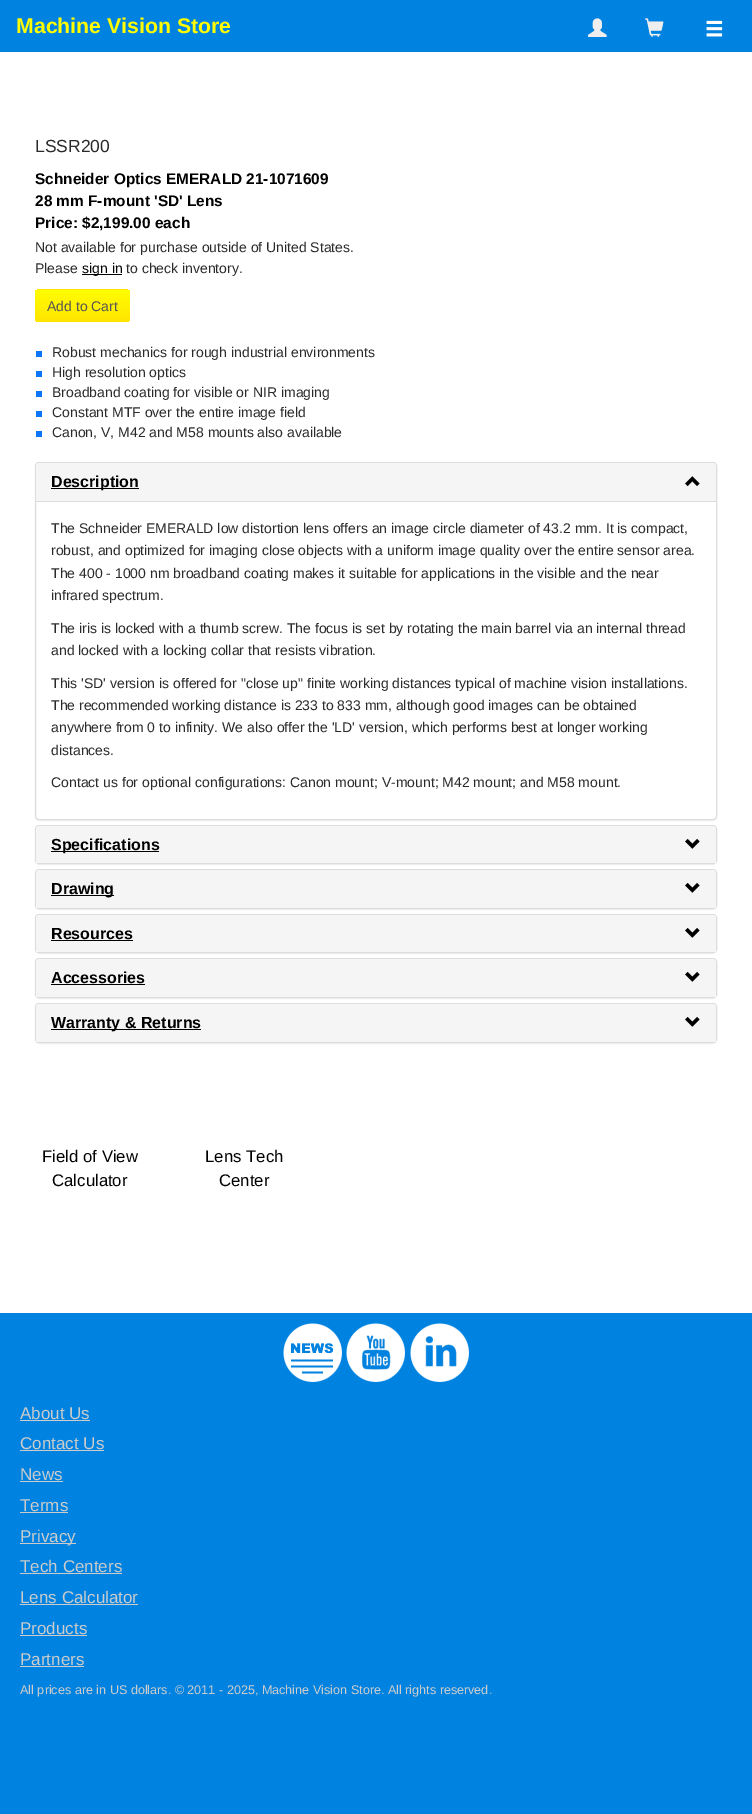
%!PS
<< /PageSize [752 1814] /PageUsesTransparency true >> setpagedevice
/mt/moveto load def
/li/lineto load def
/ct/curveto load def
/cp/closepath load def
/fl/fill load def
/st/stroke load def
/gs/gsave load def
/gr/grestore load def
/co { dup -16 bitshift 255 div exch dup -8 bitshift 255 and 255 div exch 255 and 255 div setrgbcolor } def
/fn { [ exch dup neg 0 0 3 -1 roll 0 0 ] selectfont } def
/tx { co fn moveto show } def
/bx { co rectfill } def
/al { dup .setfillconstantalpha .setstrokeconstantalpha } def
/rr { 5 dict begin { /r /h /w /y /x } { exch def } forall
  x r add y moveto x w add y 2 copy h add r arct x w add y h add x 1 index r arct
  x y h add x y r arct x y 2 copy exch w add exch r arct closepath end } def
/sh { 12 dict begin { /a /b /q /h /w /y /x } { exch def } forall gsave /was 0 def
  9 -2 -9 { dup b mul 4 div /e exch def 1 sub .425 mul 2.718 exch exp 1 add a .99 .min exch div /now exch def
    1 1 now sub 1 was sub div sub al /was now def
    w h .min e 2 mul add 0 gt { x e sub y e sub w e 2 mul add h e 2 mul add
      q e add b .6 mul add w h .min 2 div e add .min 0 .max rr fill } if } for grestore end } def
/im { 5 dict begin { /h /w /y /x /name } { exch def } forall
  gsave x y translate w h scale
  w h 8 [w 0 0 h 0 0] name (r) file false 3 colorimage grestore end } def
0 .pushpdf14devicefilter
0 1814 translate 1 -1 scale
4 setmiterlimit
0 0 752 1814 16#0082E0 bx
(media/1.raw) 588 18 19 19 im
(media/2.raw) 645 18 19 19 im
(media/3.raw) 706 20 17 17 im
0 52 752 1261 16#FFFFFF bx
82 274 40 1 16#000000 bx
gs
35 289 95 33 4 rr clip newpath
gs 35 290 mt 130 290 li 130 318 li 130 320 128 322 126 322 ct 39 322 li 37 322 35 320 35 318 ct cp clip newpath
<< /ShadingType 2 /ColorSpace /DeviceRGB /Coords [83 290 83 322] /Extend [true true] /Function << /FunctionType 2 /Domain [0 1] /C0 [1 .992 0] /C1 [1 .898 0] /N 1 >> >> shfill gr
gr
37 289 91 1 16#FFE500 bx
36 351 6 6 16#0C74F6 bx
36 371 6 6 16#0C74F6 bx
36 391 6 6 16#0C74F6 bx
36 411 6 6 16#0C74F6 bx
36 431 6 6 16#0C74F6 bx
16#000000 co
35 463 682 358 4 .5 .05 sh
16#FFFFFF co
35.5 462.5 681 357 3.5 rr gs fl gr
16#DDDDDD co
st
16#F5F5F5 co
39 463 mt 713 463 li 714.5 463 716 464.5 716 466 ct 716 501 li 36 501 li 36 466 li 36 464.5 37.5 463 39 463 ct cp fl
51 488 88 1 16#000000 bx
(media/4.raw) 685 476 15 11 im
36 501 680 1 16#DDDDDD bx
16#000000 co
35 826 682 39 4 .5 .05 sh
16#DDDDDD co
35.5 825.5 681 38 3.5 rr st
16#F5F5F5 co
39 826 mt 713 826 li 714.5 826 716 827.5 716 829 ct 716 863 li 36 863 li 36 829 li 36 827.5 37.5 826 39 826 ct cp fl
51 851 108 1 16#000000 bx
(media/5.raw) 685 838 15 11 im
35 870 682 40 4 .5 .05 sh
16#DDDDDD co
35.5 869.5 681 39 3.5 rr st
16#F5F5F5 co
39 870 mt 713 870 li 714.5 870 716 871.5 716 873 ct 716 908 li 36 908 li 36 873 li 36 871.5 37.5 870 39 870 ct cp fl
51 895 63 1 16#000000 bx
(media/5.raw) 685 882 15 11 im
35 915 682 39 4 .5 .05 sh
16#DDDDDD co
35.5 914.5 681 38 3.5 rr st
16#F5F5F5 co
39 915 mt 713 915 li 714.5 915 716 916.5 716 918 ct 716 952 li 36 952 li 36 918 li 36 916.5 37.5 915 39 915 ct cp fl
51 940 82 1 16#000000 bx
(media/5.raw) 685 927 15 11 im
35 959 682 40 4 .5 .05 sh
16#DDDDDD co
35.5 958.5 681 39 3.5 rr st
16#F5F5F5 co
39 959 mt 713 959 li 714.5 959 716 960.5 716 962 ct 716 997 li 36 997 li 36 962 li 36 960.5 37.5 959 39 959 ct cp fl
51 984 94 1 16#000000 bx
(media/5.raw) 685 971 15 11 im
35 1004 682 40 4 .5 .05 sh
16#DDDDDD co
35.5 1003.5 681 39 3.5 rr st
16#F5F5F5 co
39 1004 mt 713 1004 li 714.5 1004 716 1005.5 716 1007 ct 716 1042 li 36 1042 li 36 1007 li 36 1005.5 37.5 1004 39 1004 ct cp fl
51 1029 150 1 16#000000 bx
(media/5.raw) 685 1016 15 11 im
(media/6.raw) 283 1323 59 59 im
(media/7.raw) 346 1323 59 59 im
(media/8.raw) 410 1323 59 59 im
20 1420 70 1 16#CCCCCC bx
20 1450 84 1 16#CCCCCC bx
20 1481 43 1 16#CCCCCC bx
20 1512 48 1 16#CCCCCC bx
20 1543 56 1 16#CCCCCC bx
20 1573 102 1 16#CCCCCC bx
20 1604 118 1 16#CCCCCC bx
20 1635 67 1 16#CCCCCC bx
20 1666 64 1 16#CCCCCC bx
(Machine Vision Store) 16 33 /LiberationSans-Bold 21.25 16#FFFD00 tx
(LSSR200) 35 152 /LiberationSans-Regular 17.5 16#2A2A2A tx
(Schneider Optics EMERALD 21-1071609) 35 184 /LiberationSans-Bold 15.4 16#000000 tx
(28 mm F-mount 'SD' Lens) 35 206 /LiberationSans-Bold 15.4 16#000000 tx
(Price: $2,199.00 each) 35 228 /LiberationSans-Bold 15.4 16#000000 tx
(Not available for purchase outside of United States.) 35 252 /LiberationSans-Regular 14 16#2A2A2A tx
(Please) 35 273 /LiberationSans-Regular 14 16#2A2A2A tx
(sign in) 82 273 /LiberationSans-Regular 14 16#000000 tx
(to check inventory.) 126 273 /LiberationSans-Regular 14 16#2A2A2A tx
(Add to Cart) 47 311 /LiberationSans-Regular 14 16#555555 tx
(Robust mechanics for rough industrial environments) 52 357 /LiberationSans-Regular 14 16#2A2A2A tx
(High resolution optics) 52 377 /LiberationSans-Regular 14 16#2A2A2A tx
(Broadband coating for visible or NIR imaging) 52 397 /LiberationSans-Regular 14 16#2A2A2A tx
(Constant MTF over the entire image field) 52 417 /LiberationSans-Regular 14 16#2A2A2A tx
(Canon, V, M42 and M58 mounts also available) 52 437 /LiberationSans-Regular 14 16#2A2A2A tx
(Description) 51 487 /LiberationSans-Bold 16 16#000000 tx
(The Schneider EMERALD low distortion lens offers an image circle diameter of 43.2 mm. It is compact,) 51 533 /LiberationSans-Regular 14 16#2A2A2A tx
(robust, and optimized for imaging close objects with a uniform image quality over the entire sensor area.) 51 555 /LiberationSans-Regular 14 16#2A2A2A tx
(The 400 - 1000 nm broadband coating makes it suitable for applications in the visible and the near) 51 578 /LiberationSans-Regular 14 16#2A2A2A tx
(infrared spectrum.) 51 600 /LiberationSans-Regular 14 16#2A2A2A tx
(The iris is locked with a thumb screw. The focus is set by rotating the main barrel via an internal thread) 51 633 /LiberationSans-Regular 14 16#2A2A2A tx
(and locked with a locking collar that resists vibration.) 51 655 /LiberationSans-Regular 14 16#2A2A2A tx
(This 'SD' version is offered for "close up" finite working distances typical of machine vision installations.) 51 688 /LiberationSans-Regular 14 16#2A2A2A tx
(The recommended working distance is 233 to 833 mm, although good images can be obtained) 51 710 /LiberationSans-Regular 14 16#2A2A2A tx
(anywhere from 0 to infinity. We also offer the 'LD' version, which performs best at longer working) 51 732 /LiberationSans-Regular 14 16#2A2A2A tx
(distances.) 51 755 /LiberationSans-Regular 14 16#2A2A2A tx
(Contact us for optional configurations: Canon mount; V-mount; M42 mount; and M58 mount.) 51 787 /LiberationSans-Regular 14 16#2A2A2A tx
(Specifications) 51 850 /LiberationSans-Bold 16 16#000000 tx
(Drawing) 51 894 /LiberationSans-Bold 16 16#000000 tx
(Resources) 51 939 /LiberationSans-Bold 16 16#000000 tx
(Accessories) 51 983 /LiberationSans-Bold 16 16#000000 tx
(Warranty & Returns) 51 1028 /LiberationSans-Bold 16 16#000000 tx
(Field of View) 42 1162 /LiberationSans-Regular 16.75 16#000000 tx
(Calculator) 52 1186 /LiberationSans-Regular 16.75 16#000000 tx
(Lens Tech) 205 1162 /LiberationSans-Regular 16.75 16#000000 tx
(Center) 219 1186 /LiberationSans-Regular 16.75 16#000000 tx
(About Us) 20 1419 /LiberationSans-Regular 17 16#CCCCCC tx
(Contact Us) 20 1449 /LiberationSans-Regular 17 16#CCCCCC tx
(News) 20 1480 /LiberationSans-Regular 17 16#CCCCCC tx
(Terms) 20 1511 /LiberationSans-Regular 17 16#CCCCCC tx
(Privacy) 20 1542 /LiberationSans-Regular 17 16#CCCCCC tx
(Tech Centers) 20 1572 /LiberationSans-Regular 17 16#CCCCCC tx
(Lens Calculator) 20 1603 /LiberationSans-Regular 17 16#CCCCCC tx
(Products) 20 1634 /LiberationSans-Regular 17 16#CCCCCC tx
(Partners) 20 1665 /LiberationSans-Regular 17 16#CCCCCC tx
(All prices are in US dollars. © 2011 - 2025, Machine Vision Store. All rights reserved.) 20 1694 /LiberationSans-Regular 12.6 16#CCCCCC tx
.poppdf14devicefilter showpage
